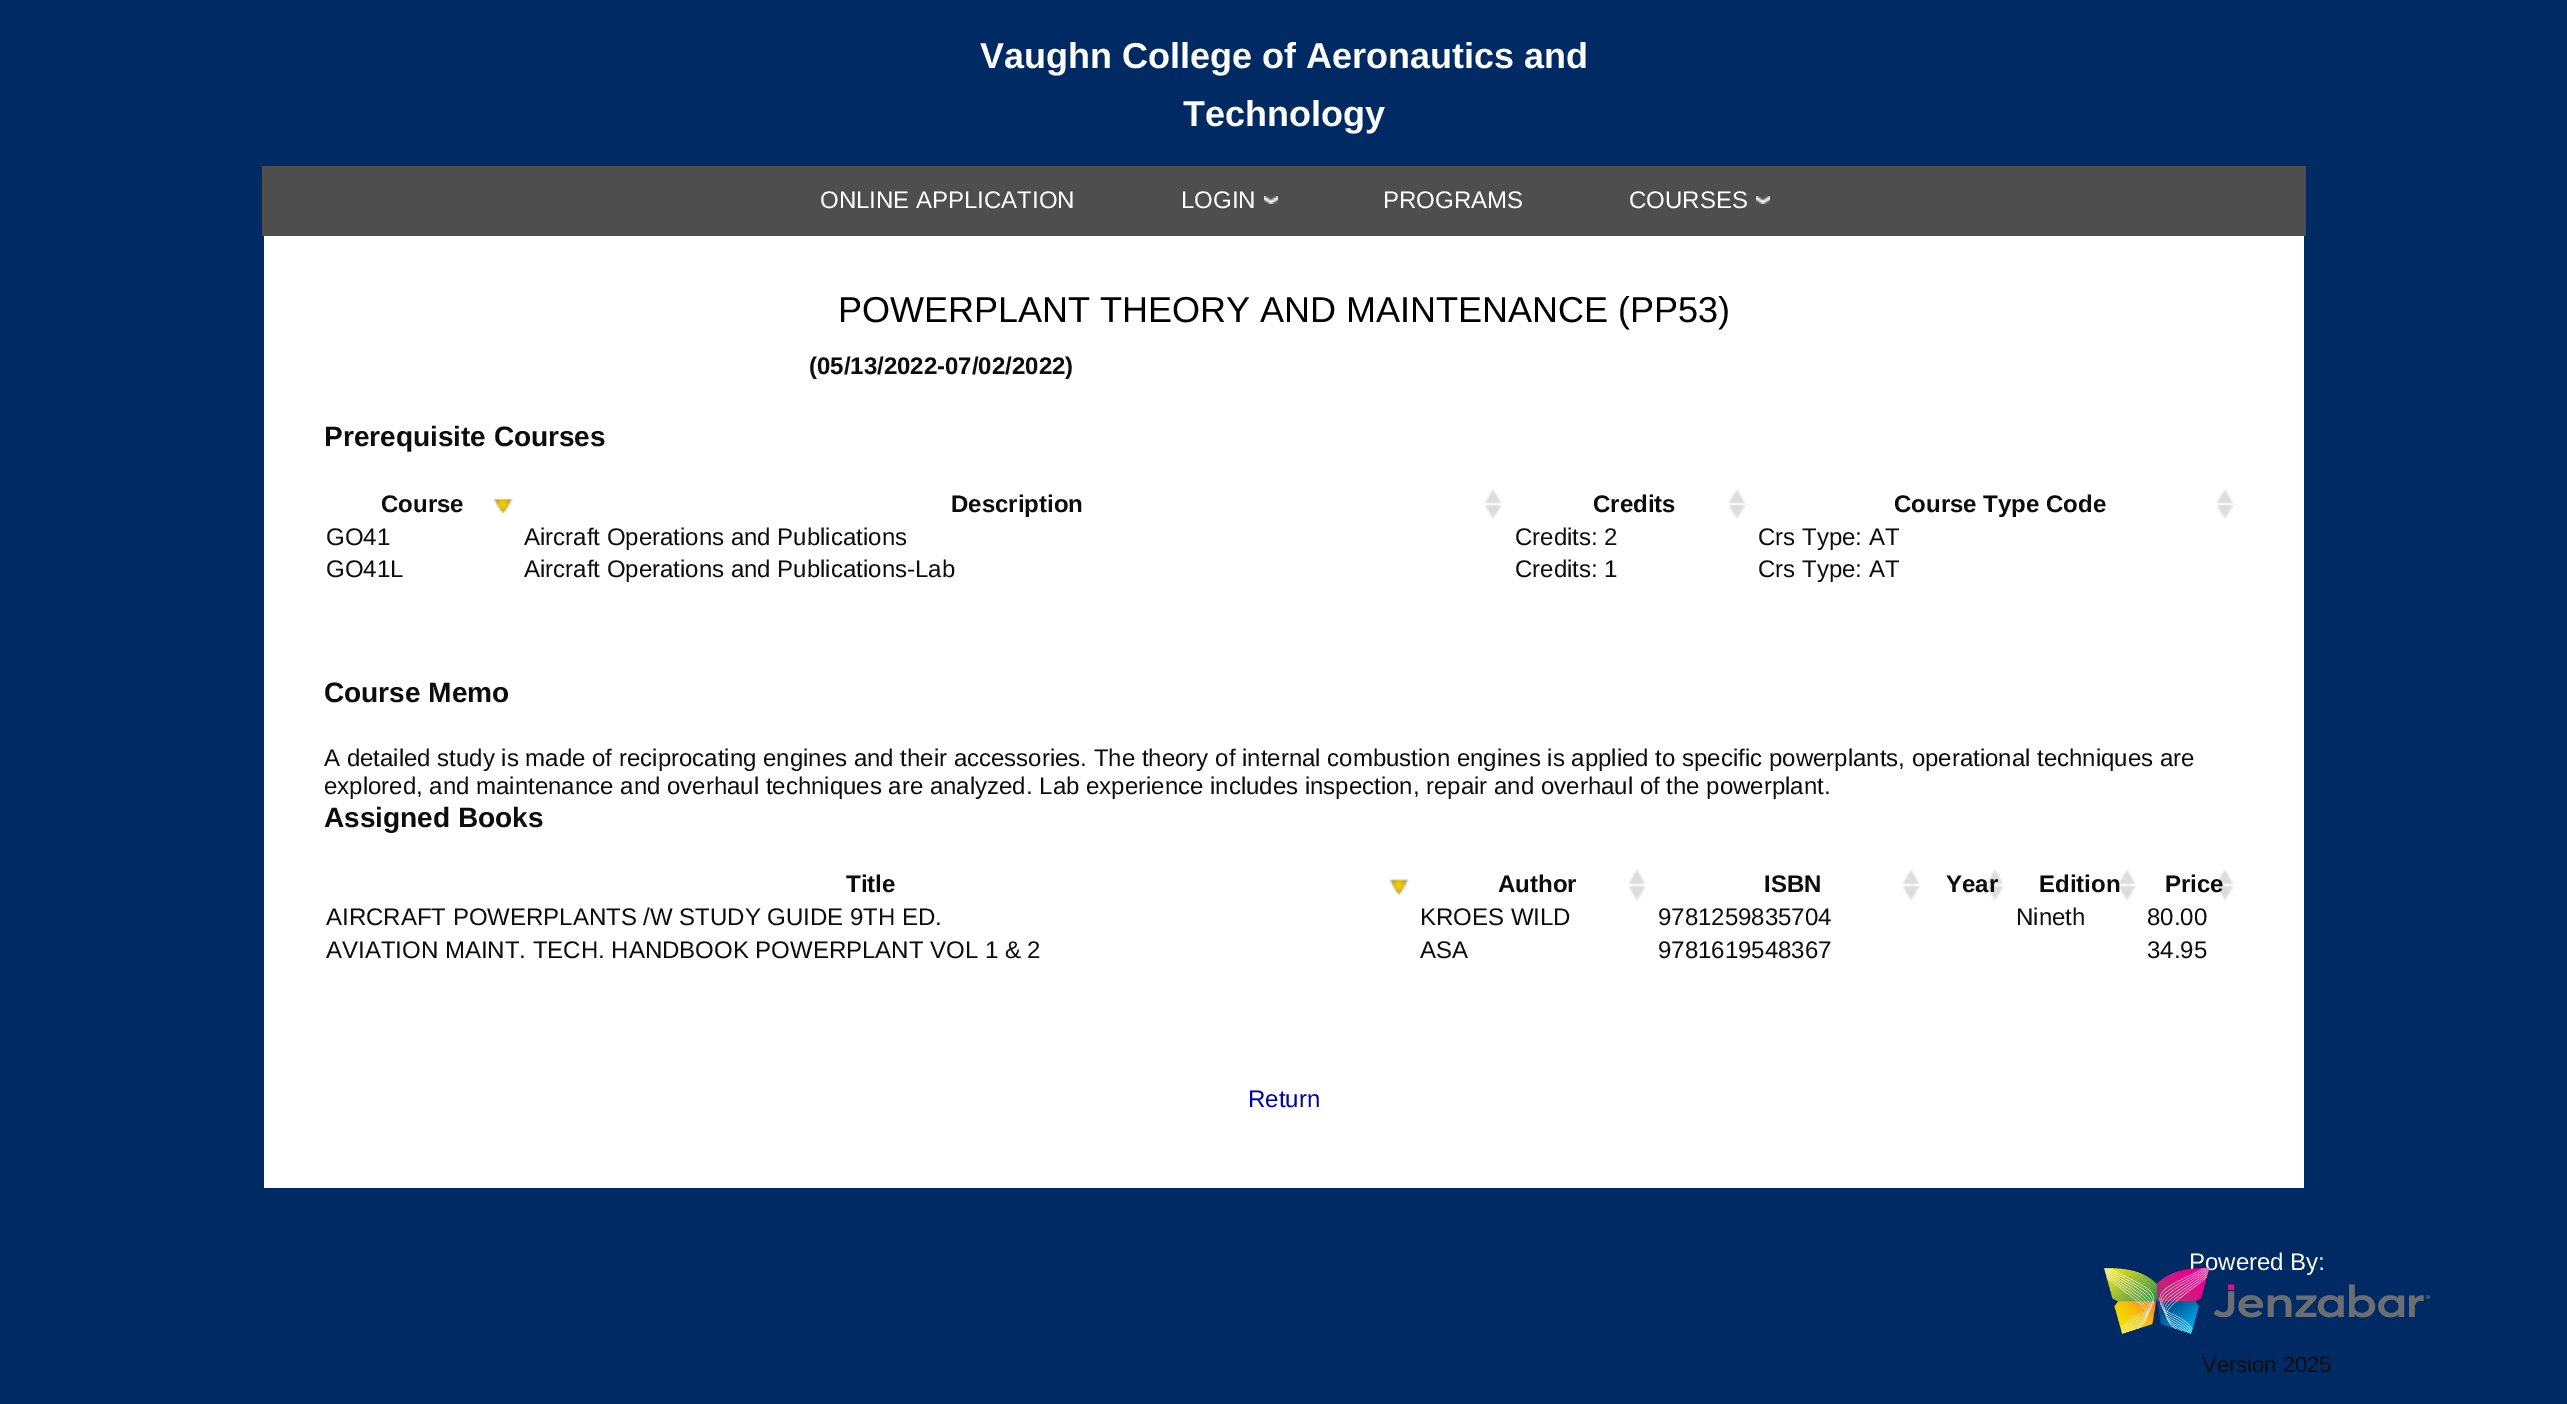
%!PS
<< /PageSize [2567 1404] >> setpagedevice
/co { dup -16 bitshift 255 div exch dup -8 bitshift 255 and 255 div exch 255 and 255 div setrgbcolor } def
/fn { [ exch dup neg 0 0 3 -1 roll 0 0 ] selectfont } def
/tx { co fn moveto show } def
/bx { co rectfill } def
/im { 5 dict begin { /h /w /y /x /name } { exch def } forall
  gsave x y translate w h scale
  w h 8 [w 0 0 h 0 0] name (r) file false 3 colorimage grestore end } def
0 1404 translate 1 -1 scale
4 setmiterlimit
0 0 2567 1404 16#002A64 bx
262 166 2044 70 16#4E4E4E bx
(media/1.raw) 1264 196 14 8 im
(media/1.raw) 1756 196 14 8 im
264 236 2040 952 16#FFFFFF bx
(media/2.raw) 493 498 20 16 im
(media/3.raw) 1484 489 18 30 im
(media/3.raw) 1728 489 18 30 im
(media/3.raw) 2216 489 18 30 im
(media/4.raw) 1389 879 20 16 im
(media/5.raw) 1628 869 18 32 im
(media/5.raw) 1902 869 18 32 im
(media/5.raw) 1986 869 18 32 im
(media/5.raw) 2118 869 18 32 im
(media/5.raw) 2216 869 18 32 im
(Vaughn College of Aeronautics and) 980 68 /LiberationSans-Bold 36 16#FFFFFF tx
(Technology) 1183 126 /LiberationSans-Bold 36 16#FFFFFF tx
(ONLINE APPLICATION) 820 208 /LiberationSans-Regular 24 16#FFFFFF tx
(LOGIN) 1181 208 /LiberationSans-Regular 24 16#FFFFFF tx
(PROGRAMS) 1383 208 /LiberationSans-Regular 24 16#FFFFFF tx
(COURSES) 1629 208 /LiberationSans-Regular 24 16#FFFFFF tx
(POWERPLANT THEORY AND MAINTENANCE \(PP53\)) 838 322 /LiberationSans-Regular 36 16#000000 tx
(\(05/13/2022-07/02/2022\)) 809 374 /LiberationSans-Bold 24 16#0D0D0D tx
(Prerequisite Courses) 324 446 /LiberationSans-Bold 28 16#0D0D0D tx
(Course) 381 512 /LiberationSans-Bold 24 16#0D0D0D tx
(Description) 951 512 /LiberationSans-Bold 24 16#0D0D0D tx
(Credits) 1593 512 /LiberationSans-Bold 24 16#0D0D0D tx
(Course Type Code) 1894 512 /LiberationSans-Bold 24 16#0D0D0D tx
(GO41) 326 545 /LiberationSans-Regular 24 16#0D0D0D tx
(Aircraft Operations and Publications) 524 545 /LiberationSans-Regular 24 16#0D0D0D tx
(Credits: 2) 1515 545 /LiberationSans-Regular 24 16#0D0D0D tx
(Crs Type: AT) 1758 545 /LiberationSans-Regular 24 16#0D0D0D tx
(GO41L) 326 577 /LiberationSans-Regular 24 16#0D0D0D tx
(Aircraft Operations and Publications-Lab) 524 577 /LiberationSans-Regular 24 16#0D0D0D tx
(Credits: 1) 1515 577 /LiberationSans-Regular 24 16#0D0D0D tx
(Crs Type: AT) 1758 577 /LiberationSans-Regular 24 16#0D0D0D tx
(Course Memo) 324 702 /LiberationSans-Bold 28 16#0D0D0D tx
(A detailed study is made of reciprocating engines and their accessories. The theory of internal combustion engines is applied to specific powerplants, operational techniques are) 324 766 /LiberationSans-Regular 24 16#0D0D0D tx
(explored, and maintenance and overhaul techniques are analyzed. Lab experience includes inspection, repair and overhaul of the powerplant.) 324 794 /LiberationSans-Regular 24 16#0D0D0D tx
(Assigned Books) 324 827 /LiberationSans-Bold 28 16#0D0D0D tx
(Title) 846 892 /LiberationSans-Bold 24 16#0D0D0D tx
(Author) 1498 892 /LiberationSans-Bold 24 16#0D0D0D tx
(ISBN) 1764 892 /LiberationSans-Bold 24 16#0D0D0D tx
(Year) 1946 892 /LiberationSans-Bold 24 16#0D0D0D tx
(Edition) 2039 892 /LiberationSans-Bold 24 16#0D0D0D tx
(Price) 2165 892 /LiberationSans-Bold 24 16#0D0D0D tx
(AIRCRAFT POWERPLANTS /W STUDY GUIDE 9TH ED.) 326 925 /LiberationSans-Regular 24 16#0D0D0D tx
(KROES WILD) 1420 925 /LiberationSans-Regular 24 16#0D0D0D tx
(9781259835704) 1658 925 /LiberationSans-Regular 24 16#0D0D0D tx
(Nineth) 2016 925 /LiberationSans-Regular 24 16#0D0D0D tx
(80.00) 2147 925 /LiberationSans-Regular 24 16#0D0D0D tx
(AVIATION MAINT. TECH. HANDBOOK POWERPLANT VOL 1 & 2) 326 958 /LiberationSans-Regular 24 16#0D0D0D tx
(ASA) 1420 958 /LiberationSans-Regular 24 16#0D0D0D tx
(9781619548367) 1658 958 /LiberationSans-Regular 24 16#0D0D0D tx
(34.95) 2147 958 /LiberationSans-Regular 24 16#0D0D0D tx
(Return) 1248 1107 /LiberationSans-Regular 24 16#0000AA tx
(Powered By:) 2189 1270 /LiberationSans-Regular 24 16#FFFFFF tx
(media/6.raw) 2104 1268 326 66 im
(Version 2025) 2202 1372 /LiberationSans-Regular 22 16#0D0D0D tx
showpage
